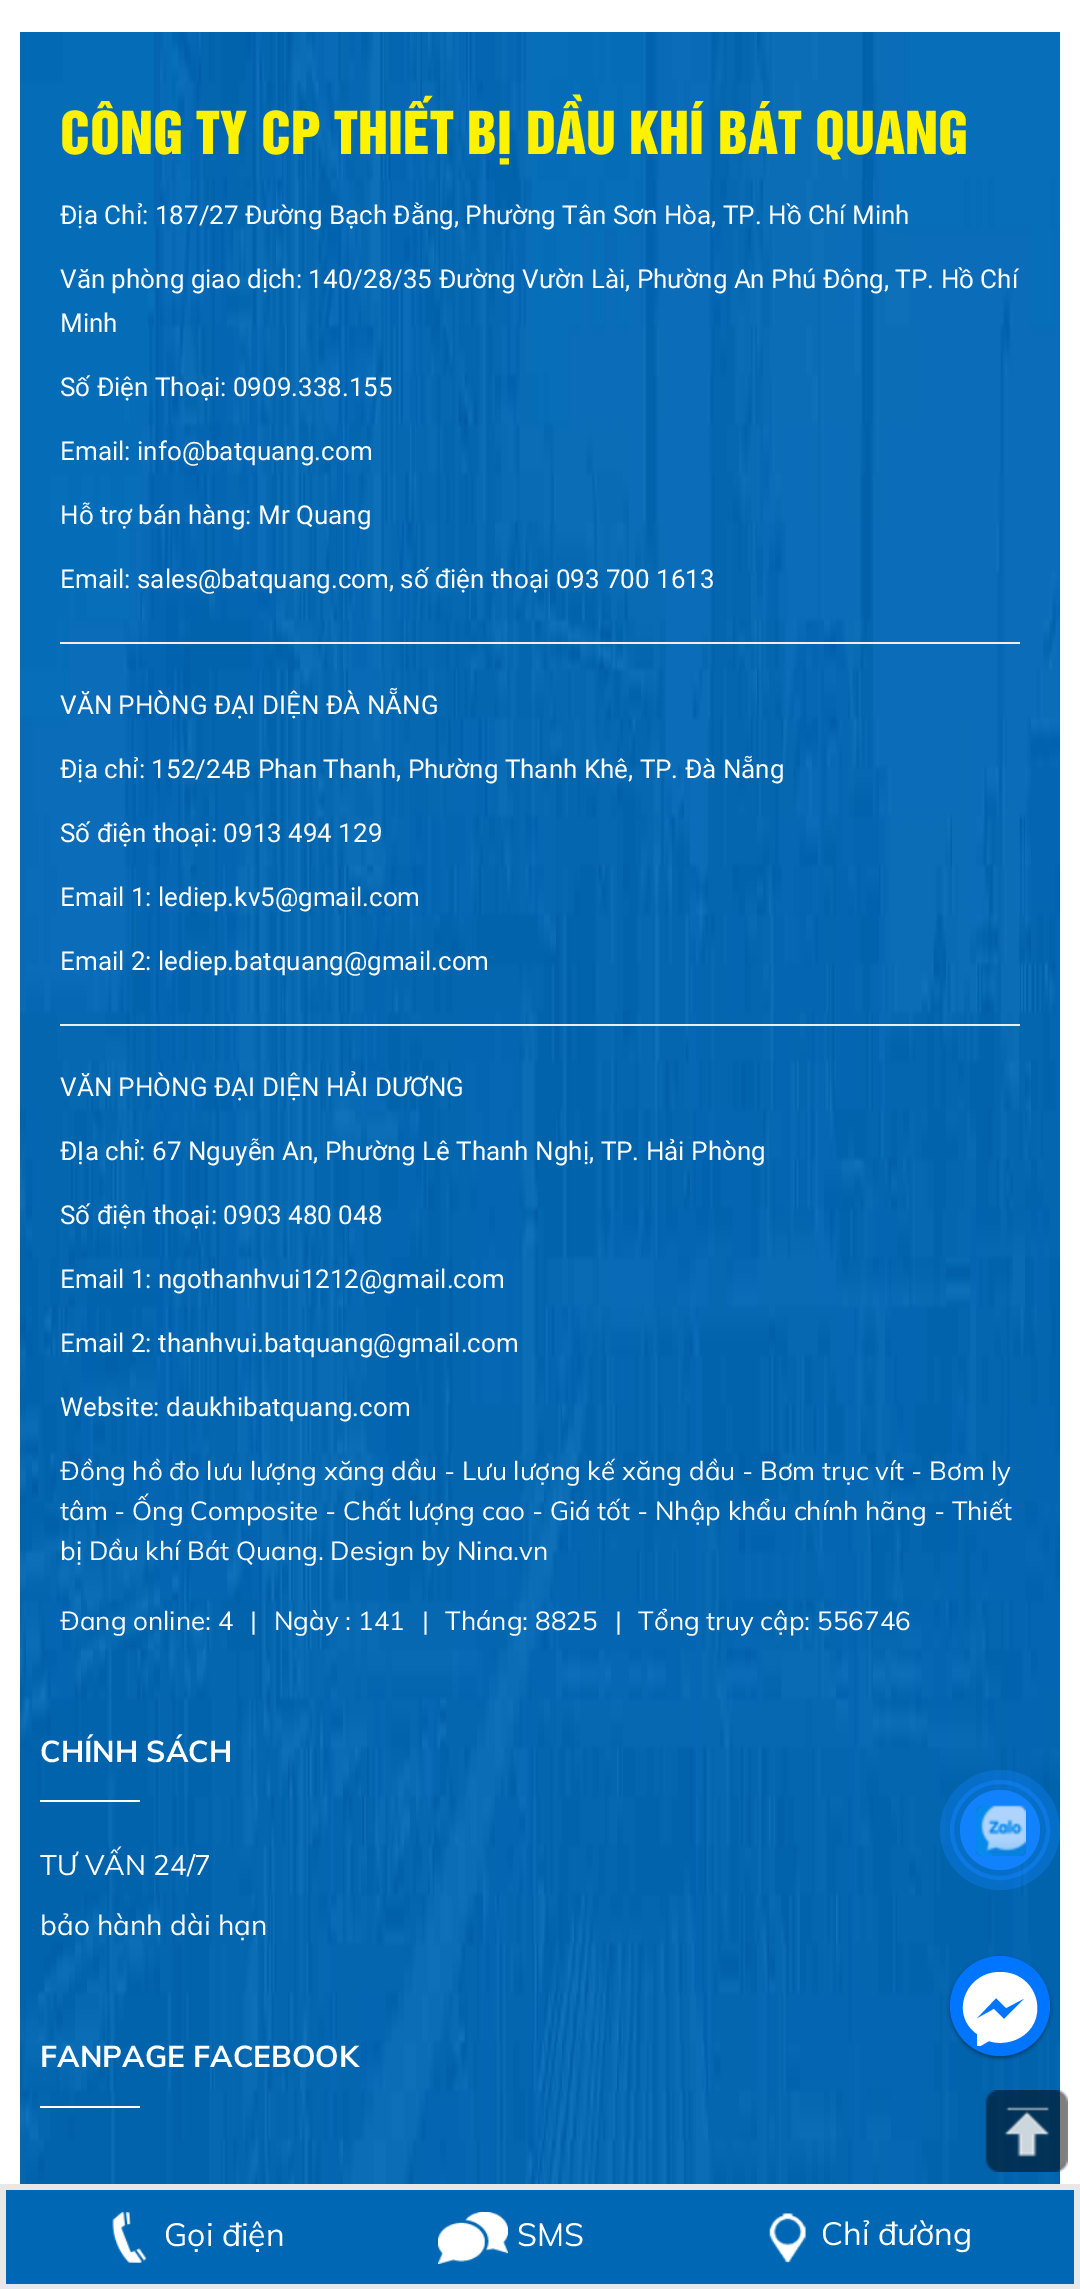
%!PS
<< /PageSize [1080 2289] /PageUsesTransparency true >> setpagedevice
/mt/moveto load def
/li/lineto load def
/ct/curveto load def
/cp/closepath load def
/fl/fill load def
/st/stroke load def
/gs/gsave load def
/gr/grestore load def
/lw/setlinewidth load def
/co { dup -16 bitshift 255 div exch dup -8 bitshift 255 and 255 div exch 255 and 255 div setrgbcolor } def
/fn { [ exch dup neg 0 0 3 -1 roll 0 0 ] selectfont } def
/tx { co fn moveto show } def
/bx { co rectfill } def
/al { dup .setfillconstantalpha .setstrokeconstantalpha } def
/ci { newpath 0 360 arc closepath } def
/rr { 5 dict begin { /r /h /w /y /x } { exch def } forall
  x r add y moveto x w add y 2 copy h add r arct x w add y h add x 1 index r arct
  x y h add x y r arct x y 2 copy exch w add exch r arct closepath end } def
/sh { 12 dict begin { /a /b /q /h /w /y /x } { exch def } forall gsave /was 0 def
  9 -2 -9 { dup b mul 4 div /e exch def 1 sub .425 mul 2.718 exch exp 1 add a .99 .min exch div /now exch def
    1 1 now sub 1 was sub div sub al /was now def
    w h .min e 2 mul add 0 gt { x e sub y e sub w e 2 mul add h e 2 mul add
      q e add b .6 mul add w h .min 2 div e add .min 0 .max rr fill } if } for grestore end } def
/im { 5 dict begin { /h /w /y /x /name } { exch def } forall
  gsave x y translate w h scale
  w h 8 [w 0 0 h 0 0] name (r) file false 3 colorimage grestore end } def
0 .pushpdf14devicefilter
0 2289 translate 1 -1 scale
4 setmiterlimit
0 0 1080 2289 16#FFFFFF bx
(media/1.raw) 20 32 1040 2152 im
60 642 960 2 16#EEEEEE bx
60 1024 960 2 16#EEEEEE bx
40 1800 100 2 16#FFFFFF bx
40 2106 100 2 16#FFFFFF bx
16#000000 co
950 1958 100 100 50 2 .4 sh
16#0075FF co
1000 2006 50 ci fl
gs
962 1972 76 74 rectclip
16#FFFFFF co
1000 1972 mt 966 1972 949 2014 977 2034 ct 977 2048 li 989 2041 li 997 2044 1007 2043 1015 2040 ct 1052 2025 1040 1972 1000 1972 ct cp 1004 2019 mt 994 2009 li 976 2019 li 996 1998 li 1006 2008 li 1025 1998 li cp fl
gr
(media/2.raw) 985 2090 83 82 im
6 2190 1068 94 16#0067B4 bx
0 2184 1080 6 16#E8E8E8 bx
1074 2184 6 105 16#E8E8E8 bx
0 2284 1080 5 16#E8E8E8 bx
0 2184 6 105 16#E8E8E8 bx
(media/3.raw) 112 2212 35 51 im
(media/4.raw) 438 2212 70 52 im
(media/5.raw) 769 2213 37 50 im
16#1182FC co
1000 1830 40 ci fl
(media/6.raw) 975 1805 51 51 im
0.5 al
4 lw
1000 1830 48 ci st
0.34 al
1000 1830 60 ci fl
1 al
(CÔNG TY CP THIẾT BỊ DẦU KHÍ BÁT QUANG) 60 154 /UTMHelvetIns-Regular 54 16#FFF200 tx
(Địa Chỉ: 187/27 Đường Bạch Đằng, Phường Tân Sơn Hòa, TP. Hồ Chí Minh) 60 224 /Roboto-Regular 26 16#FFFFFF tx
(Văn phòng giao dịch: 140/28/35 Đường Vườn Lài, Phường An Phú Đông, TP. Hồ Chí) 60 288 /Roboto-Regular 26 16#FFFFFF tx
(Minh) 60 332 /Roboto-Regular 26 16#FFFFFF tx
(Số Điện Thoại: 0909.338.155) 60 396 /Roboto-Regular 26 16#FFFFFF tx
(Email: info@batquang.com) 60 460 /Roboto-Regular 26 16#FFFFFF tx
(Hỗ trợ bán hàng: Mr Quang) 60 524 /Roboto-Regular 26 16#FFFFFF tx
(Email: sales@batquang.com, số điện thoại 093 700 1613) 60 588 /Roboto-Regular 26 16#FFFFFF tx
(VĂN PHÒNG ĐẠI DIỆN ĐÀ NẴNG) 60 714 /Roboto-Regular 26 16#FFFFFF tx
(Địa chỉ: 152/24B Phan Thanh, Phường Thanh Khê, TP. Đà Nẵng) 60 778 /Roboto-Regular 26 16#FFFFFF tx
(Số điện thoại: 0913 494 129) 60 842 /Roboto-Regular 26 16#FFFFFF tx
(Email 1: lediep.kv5@gmail.com) 60 906 /Roboto-Regular 26 16#FFFFFF tx
(Email 2: lediep.batquang@gmail.com) 60 970 /Roboto-Regular 26 16#FFFFFF tx
(VĂN PHÒNG ĐẠI DIỆN HẢI DƯƠNG) 60 1096 /Roboto-Regular 26 16#FFFFFF tx
(ĐỊa chỉ: 67 Nguyễn An, Phường Lê Thanh Nghị, TP. Hải Phòng) 60 1160 /Roboto-Regular 26 16#FFFFFF tx
(Số điện thoại: 0903 480 048) 60 1224 /Roboto-Regular 26 16#FFFFFF tx
(Email 1: ngothanhvui1212@gmail.com) 60 1288 /Roboto-Regular 26 16#FFFFFF tx
(Email 2: thanhvui.batquang@gmail.com) 60 1352 /Roboto-Regular 26 16#FFFFFF tx
(Website: daukhibatquang.com) 60 1416 /Roboto-Regular 26 16#FFFFFF tx
(Đồng hồ đo lưu lượng xăng dầu - Lưu lượng kế xăng dầu - Bơm trục vít - Bơm ly) 60 1480 /Muli-Regular 26 16#FFFFFF tx
(tâm - Ống Composite - Chất lượng cao - Giá tốt - Nhập khẩu chính hãng - Thiết) 60 1520 /Muli-Regular 26 16#FFFFFF tx
(bị Dầu khí Bát Quang. Design by Nina.vn) 60 1560 /Muli-Regular 26 16#FFFFFF tx
(Đang online: 4) 60 1630 /Muli-Regular 26 16#FFFFFF tx
(|) 250 1630 /Muli-Regular 26 16#FFFFFF tx
(Ngày : 141) 274 1630 /Muli-Regular 26 16#FFFFFF tx
(|) 422 1630 /Muli-Regular 26 16#FFFFFF tx
(Tháng: 8825) 445 1630 /Muli-Regular 26 16#FFFFFF tx
(|) 615 1630 /Muli-Regular 26 16#FFFFFF tx
(Tổng truy cập: 556746) 638 1630 /Muli-Regular 26 16#FFFFFF tx
(CHÍNH SÁCH) 40 1762 /Muli-Bold 30 16#FFFFFF tx
(TƯ VẤN 24/7) 40 1875 /Muli-Regular 28 16#FFFFFF tx
(bảo hành dài hạn) 40 1935 /Muli-Regular 28 16#FFFFFF tx
(FANPAGE FACEBOOK) 40 2067 /Muli-Bold 30 16#FFFFFF tx
(Gọi điện) 164 2246 /Muli-Regular 32 16#FFFFFF tx
(SMS) 517 2246 /Muli-Regular 32 16#FFFFFF tx
(Chỉ đường) 821 2245 /Muli-Regular 32 16#FFFFFF tx
.poppdf14devicefilter showpage
